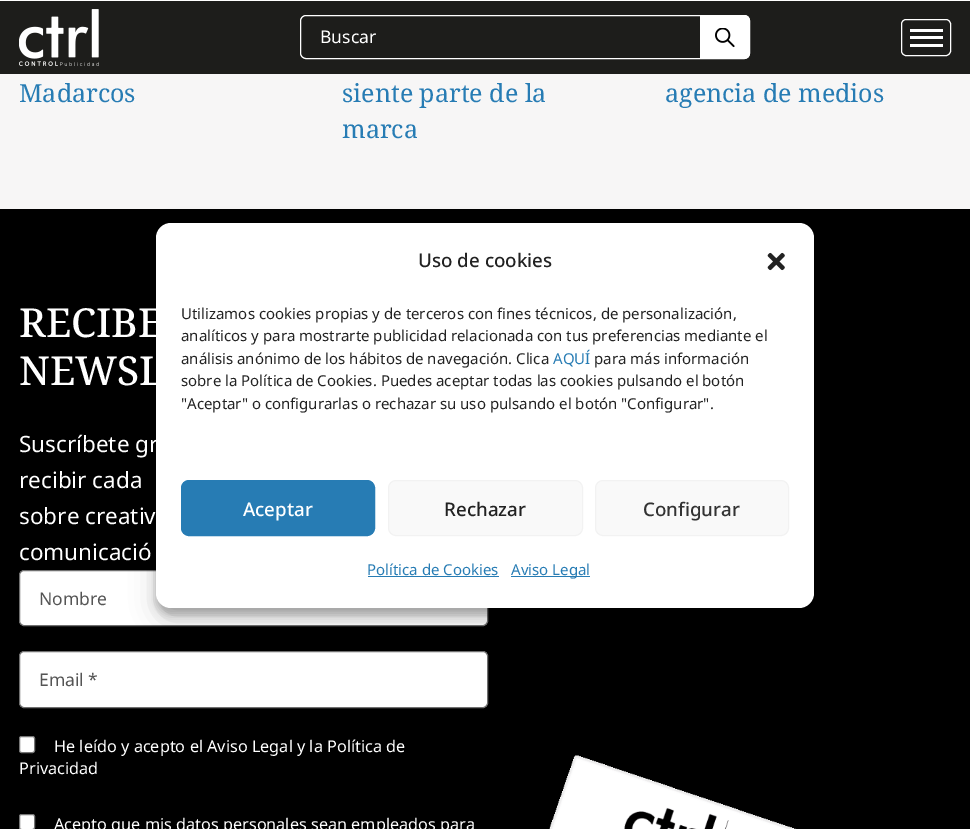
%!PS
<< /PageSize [970 829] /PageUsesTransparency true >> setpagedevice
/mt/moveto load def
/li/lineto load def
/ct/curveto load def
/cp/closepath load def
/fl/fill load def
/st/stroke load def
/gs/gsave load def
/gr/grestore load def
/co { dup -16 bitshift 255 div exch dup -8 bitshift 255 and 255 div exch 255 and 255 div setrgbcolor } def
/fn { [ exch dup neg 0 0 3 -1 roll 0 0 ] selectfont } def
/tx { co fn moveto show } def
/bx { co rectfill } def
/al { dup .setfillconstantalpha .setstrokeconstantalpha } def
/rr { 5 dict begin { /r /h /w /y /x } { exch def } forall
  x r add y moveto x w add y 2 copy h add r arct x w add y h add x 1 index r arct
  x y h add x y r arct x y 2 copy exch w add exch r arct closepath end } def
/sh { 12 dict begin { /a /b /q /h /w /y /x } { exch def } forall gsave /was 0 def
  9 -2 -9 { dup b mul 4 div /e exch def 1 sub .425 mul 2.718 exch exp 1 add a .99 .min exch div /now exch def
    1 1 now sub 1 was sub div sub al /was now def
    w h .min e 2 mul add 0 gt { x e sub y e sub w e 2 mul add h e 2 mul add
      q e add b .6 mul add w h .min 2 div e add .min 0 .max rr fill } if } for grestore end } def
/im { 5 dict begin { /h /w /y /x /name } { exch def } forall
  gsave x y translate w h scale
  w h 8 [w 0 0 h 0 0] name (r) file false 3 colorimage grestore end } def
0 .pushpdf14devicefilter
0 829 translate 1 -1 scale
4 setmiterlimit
0 0 970 829 16#F7F6F6 bx
0 1 970 73 16#1D1D1B bx
0 0 970 1 16#FFFFFF bx
(media/1.raw) 19 9 80 57 im
300.5 15.5 449 43 5.5 rr st
700 15 mt 744 15 li 747.5 15 750 17.5 750 21 ct 750 53 li 750 56.5 747.5 59 744 59 ct 700 59 li cp fl
(media/2.raw) 715 28 20 20 im
901.5 19.5 49 36 4.5 rr st
910 36 33 3 16#FFFFFF bx
910 29 33 3 16#FFFFFF bx
910 44 33 3 16#FFFFFF bx
0 209 970 620 16#000000 bx
16#FFFFFF co
19.5 570.5 468 55 4.5 rr gs fl gr
16#707070 co
st
16#FFFFFF co
19.5 651.5 468 56 4.5 rr gs fl gr
16#707070 co
st
16#FFFFFF co
19.5 736.5 15 16 2 rr gs fl gr
16#767676 co
st
16#FFFFFF co
19.5 814.5 15 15 2 rr gs fl gr
16#767676 co
st
(media/3.raw) 549 755 248 74 im
16#000000 co
156 230 658 385 15 4 .23 sh
156 235 658 385 15 12.5 .19 sh
16#FFFFFF co
156 223 658 385 15 rr fl
(media/4.raw) 767 252 18 19 im
16#277CB4 co
181.5 480.5 193 55 7.5 rr gs fl gr
st
16#F9F9F9 co
388.5 480.5 194 55 7.5 rr gs fl gr
16#F2F2F2 co
st
16#F9F9F9 co
595.5 480.5 193 55 7.5 rr gs fl gr
16#F2F2F2 co
st
368 576 131 1 16#277CB4 bx
511 576 79 1 16#277CB4 bx
(Buscar) 320 43 /NotoSans-Regular 17.5 16#FFFFFF tx
(Madarcos) 19 102 /NotoSerif-Regular 25 16#277CB4 tx
(siente parte de la) 342 102 /NotoSerif-Regular 25 16#277CB4 tx
(marca) 342 138 /NotoSerif-Regular 25 16#277CB4 tx
(agencia de medios) 665 102 /NotoSerif-Regular 25 16#277CB4 tx
(RECIBE) 19 337 /NotoSerif-Medium 40 16#FFFFFF tx
(NEWSL) 19 385 /NotoSerif-Medium 40 16#FFFFFF tx
(Suscríbete gr) 19 452 /NotoSans-Regular 22.5 16#FFFFFF tx
(recibir cada) 19 488 /NotoSans-Regular 22.5 16#FFFFFF tx
(sobre creativ) 19 524 /NotoSans-Regular 22.5 16#FFFFFF tx
(comunicació) 19 560 /NotoSans-Regular 22.5 16#FFFFFF tx
(Nombre) 39 605 /NotoSans-Regular 17.5 16#555555 tx
(Email *) 39 686 /NotoSans-Regular 17.5 16#555555 tx
(He leído y acepto el Aviso Legal y la Política de) 54 752 /NotoSans-Regular 16.25 16#FFFFFF tx
(Privacidad) 19 774 /NotoSans-Regular 16.25 16#FFFFFF tx
(Acepto que mis datos personales sean empleados para) 54 830 /NotoSans-Regular 16.25 16#FFFFFF tx
(Uso de cookies) 418 267 /NotoSans-Medium 18.75 16#222222 tx
(Utilizamos cookies propias y de terceros con fines técnicos, de personalización,) 181 319 /NotoSans-Regular 15 16#222222 tx
(analíticos y para mostrarte publicidad relacionada con tus preferencias mediante el) 181 341 /NotoSans-Regular 15 16#222222 tx
(análisis anónimo de los hábitos de navegación. Clica) 181 364 /NotoSans-Regular 15 16#222222 tx
(AQUÍ) 553 364 /NotoSans-Regular 15 16#277CB4 tx
(para más información) 594 364 /NotoSans-Regular 15 16#222222 tx
(sobre la Política de Cookies. Puedes aceptar todas las cookies pulsando el botón) 181 386 /NotoSans-Regular 15 16#222222 tx
("Aceptar" o configurarlas o rechazar su uso pulsando el botón "Configurar".) 181 409 /NotoSans-Regular 15 16#222222 tx
(Aceptar) 243 516 /NotoSans-Medium 18.75 16#FFFFFF tx
(Rechazar) 444 516 /NotoSans-Medium 18.75 16#222222 tx
(Configurar) 643 516 /NotoSans-Medium 18.75 16#333333 tx
(Política de Cookies) 367 575 /NotoSans-Regular 15 16#277CB4 tx
(Aviso Legal) 511 575 /NotoSans-Regular 15 16#277CB4 tx
.poppdf14devicefilter showpage
